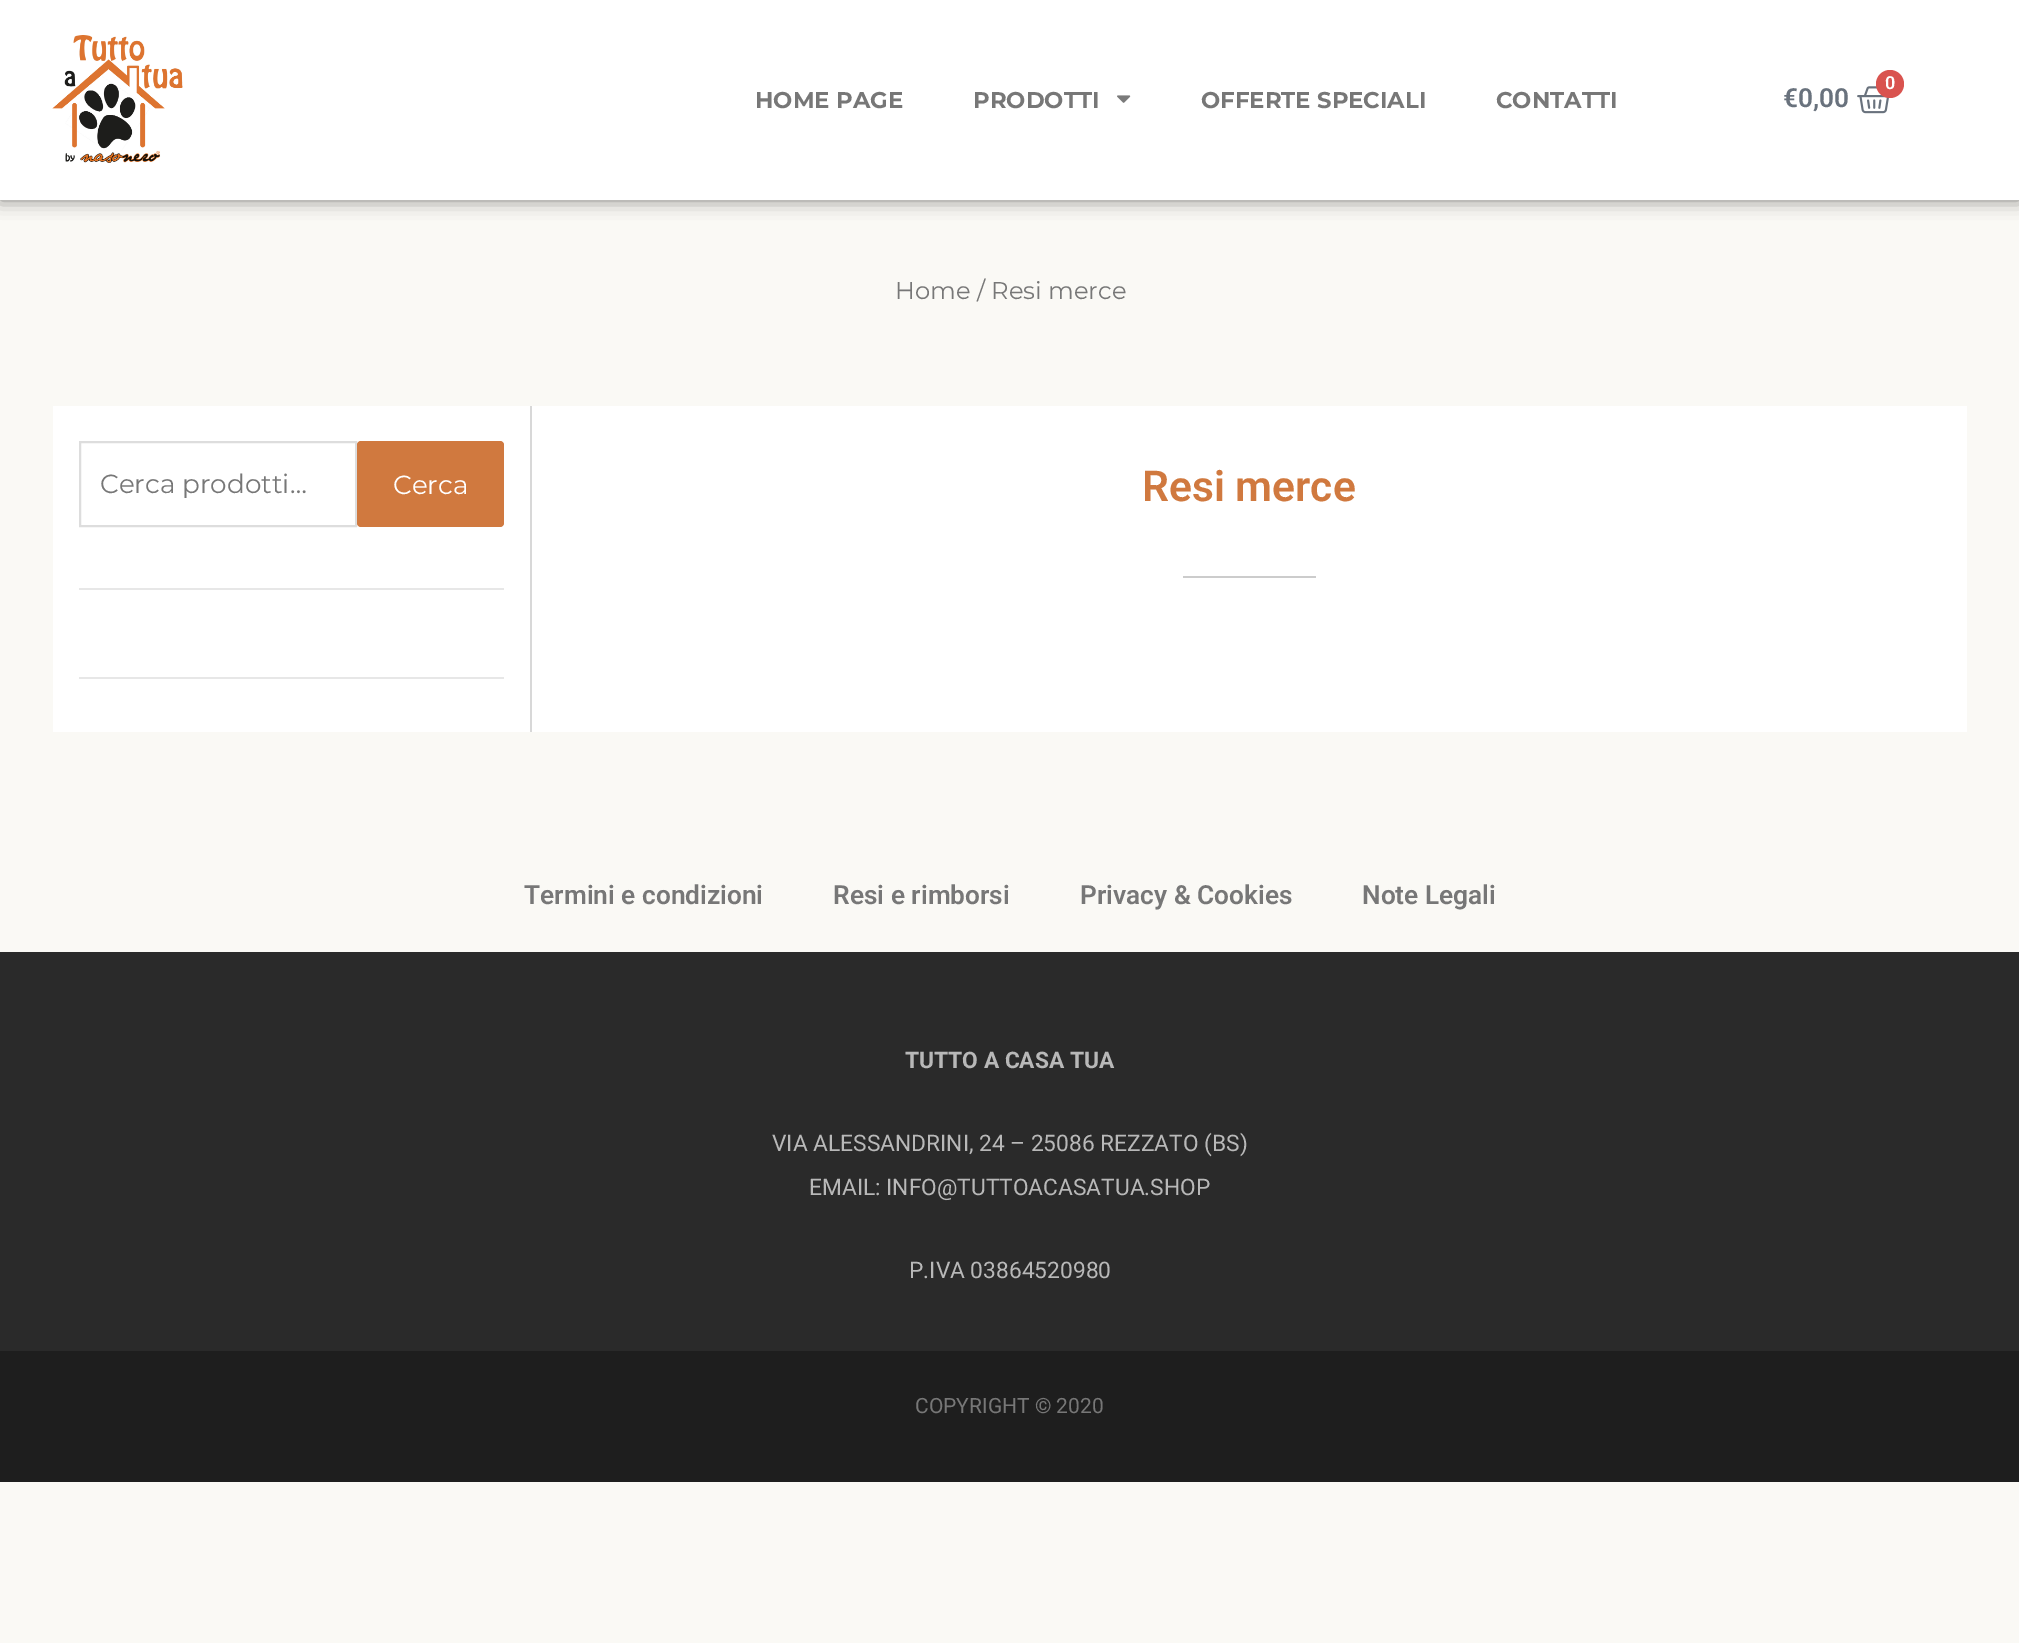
%!PS
<< /PageSize [2019 1643] /PageUsesTransparency true >> setpagedevice
/fl/fill load def
/lw/setlinewidth load def
/co { dup -16 bitshift 255 div exch dup -8 bitshift 255 and 255 div exch 255 and 255 div setrgbcolor } def
/fn { [ exch dup neg 0 0 3 -1 roll 0 0 ] selectfont } def
/tx { co fn moveto show } def
/bx { co rectfill } def
/al { dup .setfillconstantalpha .setstrokeconstantalpha } def
/ci { newpath 0 360 arc closepath } def
/rr { 5 dict begin { /r /h /w /y /x } { exch def } forall
  x r add y moveto x w add y 2 copy h add r arct x w add y h add x 1 index r arct
  x y h add x y r arct x y 2 copy exch w add exch r arct closepath end } def
/sh { 12 dict begin { /a /b /q /h /w /y /x } { exch def } forall gsave /was 0 def
  9 -2 -9 { dup b mul 4 div /e exch def 1 sub .425 mul 2.718 exch exp 1 add a .99 .min exch div /now exch def
    1 1 now sub 1 was sub div sub al /was now def
    w h .min e 2 mul add 0 gt { x e sub y e sub w e 2 mul add h e 2 mul add
      q e add b .6 mul add w h .min 2 div e add .min 0 .max rr fill } if } for grestore end } def
/im { 5 dict begin { /h /w /y /x /name } { exch def } forall
  gsave x y translate w h scale
  w h 8 [w 0 0 h 0 0] name (r) file false 3 colorimage grestore end } def
0 .pushpdf14devicefilter
0 1643 translate 1 -1 scale
4 setmiterlimit
0 0 2019 1643 16#FAF9F5 bx
16#000000 co
0 0 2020 200 0 9 .5 sh
0 0 2019 200 16#FFFFFF bx
(media/1.raw) 52 35 131 128 im
(media/2.raw) 1117 95 14 8 im
(media/3.raw) 1857 86 34 28 im
16#D9534F co
1890 84 14 ci fl
53 406 477 326 16#FFFFFF bx
530 406 2 326 16#D8D8D8 bx
16#DDDDDD co
2 lw
80 442 276 84 rectstroke
16#D0793F co
357 441 147 86 4 rr fl
79 588 425 2 16#E7E7E7 bx
79 677 425 2 16#E7E7E7 bx
532 406 1435 326 16#FFFFFF bx
1183 576 133 2 16#CCCCCC bx
0 952 2019 399 16#2A2A2A bx
0 1351 2019 131 16#1E1E1E bx
(HOME PAGE) 755 108 /Montserrat-Bold 22.75 16#777777 tx
(PRODOTTI) 973 108 /Montserrat-Bold 22.75 16#777777 tx
(OFFERTE SPECIALI) 1201 108 /Montserrat-Bold 22.75 16#777777 tx
(CONTATTI) 1496 108 /Montserrat-Bold 22.75 16#777777 tx
(0) 1885 89 /Roboto-SemiBold 18 16#FFFFFF tx
(€0,00) 1783 107 /Roboto-SemiBold 26.25 16#69727D tx
(Home / Resi merce) 895 299 /Montserrat-Regular 24.25 16#777777 tx
(Cerca prodotti…) 100 493 /Montserrat-Regular 26.25 16#777777 tx
(Cerca) 393 494 /Montserrat-Regular 26.25 16#FFFFFF tx
(Resi merce) 1142 501 /Roboto-SemiBold 42.5 16#D0793F tx
(Termini e condizioni) 524 904 /Roboto-SemiBold 26.25 16#777777 tx
(Resi e rimborsi) 833 904 /Roboto-SemiBold 26.25 16#777777 tx
(Privacy & Cookies) 1080 904 /Roboto-SemiBold 26.25 16#777777 tx
(Note Legali) 1362 904 /Roboto-SemiBold 26.25 16#777777 tx
(TUTTO A CASA TUA) 905 1068 /Roboto-Bold 22.75 16#B8B8B8 tx
(VIA ALESSANDRINI, 24 – 25086 REZZATO \(BS\)) 772 1151 /Roboto-Regular 22.75 16#B8B8B8 tx
(EMAIL: INFO@TUTTOACASATUA.SHOP) 809 1195 /Roboto-Regular 22.75 16#B8B8B8 tx
(P.IVA 03864520980) 909 1278 /Roboto-Regular 22.75 16#B8B8B8 tx
(COPYRIGHT © 2020) 915 1413 /Roboto-Regular 21 16#777777 tx
.poppdf14devicefilter showpage
